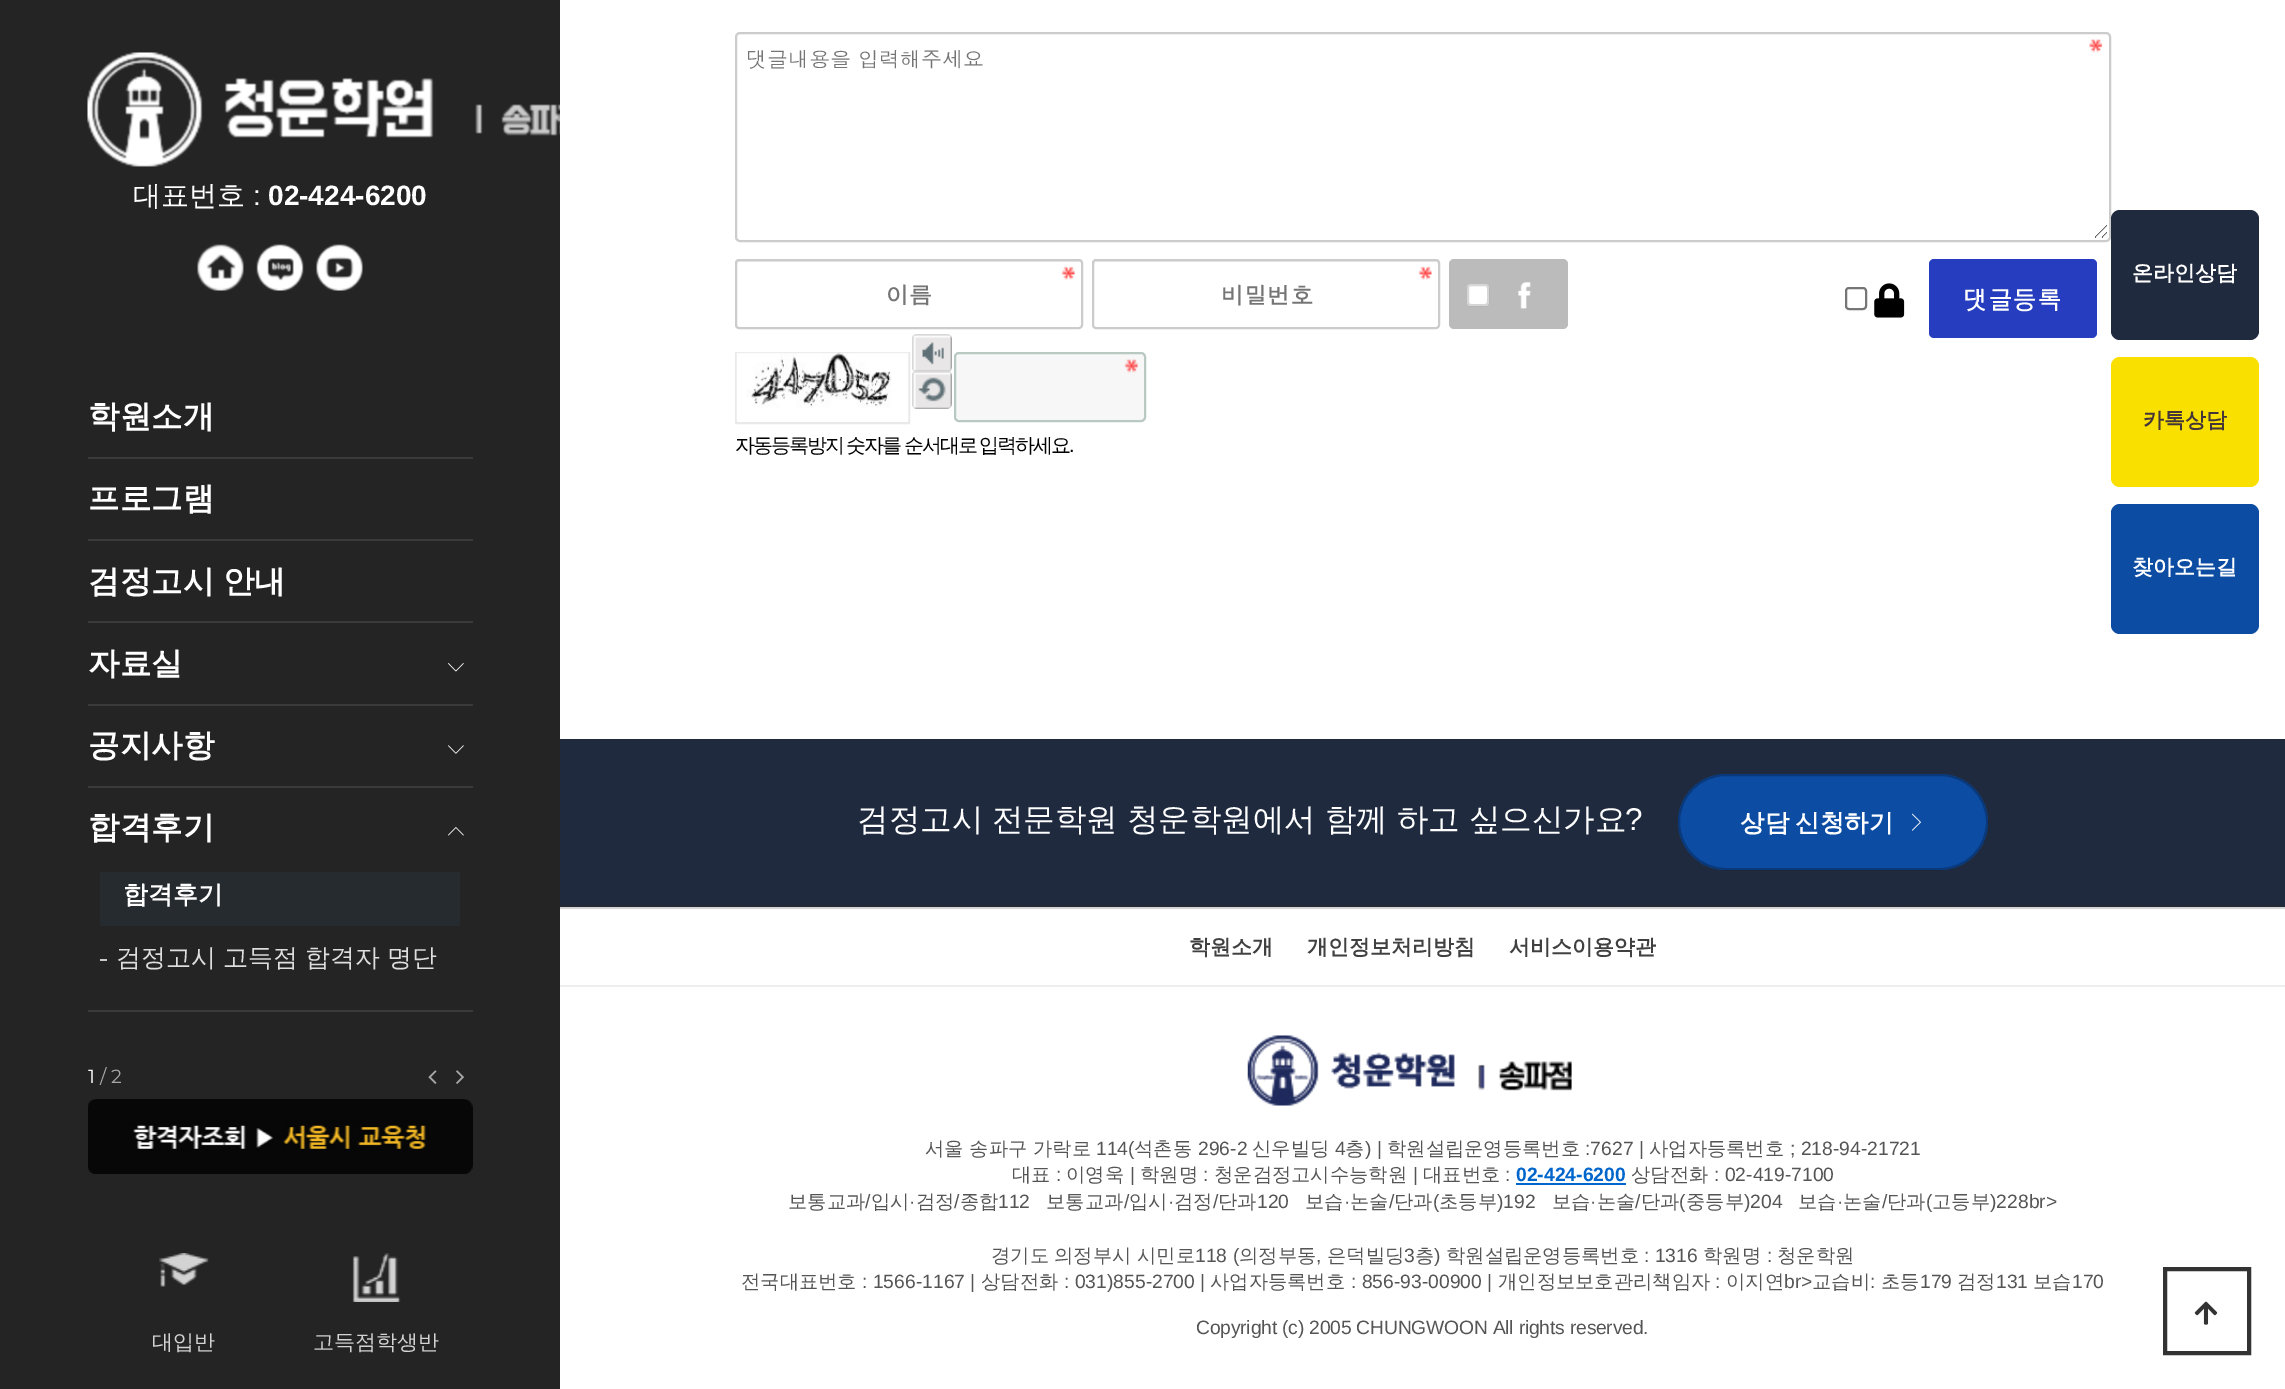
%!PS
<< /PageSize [2285 1389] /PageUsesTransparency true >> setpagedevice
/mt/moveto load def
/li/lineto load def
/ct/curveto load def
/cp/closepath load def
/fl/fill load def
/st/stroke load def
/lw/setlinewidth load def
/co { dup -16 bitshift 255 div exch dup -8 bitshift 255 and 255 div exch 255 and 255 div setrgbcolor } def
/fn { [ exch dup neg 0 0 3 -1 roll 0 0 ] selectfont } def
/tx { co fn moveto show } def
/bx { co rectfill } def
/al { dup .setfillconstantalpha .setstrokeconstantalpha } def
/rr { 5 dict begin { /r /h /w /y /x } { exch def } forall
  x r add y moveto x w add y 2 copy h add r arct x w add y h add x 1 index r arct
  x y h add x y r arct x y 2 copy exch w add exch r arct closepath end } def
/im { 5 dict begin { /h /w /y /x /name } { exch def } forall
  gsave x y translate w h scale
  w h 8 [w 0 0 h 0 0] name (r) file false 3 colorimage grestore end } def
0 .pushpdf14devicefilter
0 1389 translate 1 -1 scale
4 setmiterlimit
0 0 2285 1389 16#FFFFFF bx
0 0 560 1389 16#242424 bx
(media/1.raw) 87 52 473 115 im
(media/2.raw) 197 244 47 47 im
(media/3.raw) 256 244 48 47 im
(media/4.raw) 316 244 47 47 im
88 457 385 2 16#3A3A3A bx
88 539 385 2 16#3A3A3A bx
88 621 385 2 16#3A3A3A bx
88 704 385 2 16#3A3A3A bx
(media/5.raw) 448 663 16 9 im
88 786 385 2 16#3A3A3A bx
(media/6.raw) 448 745 16 9 im
88 1010 385 2 16#3A3A3A bx
(media/7.raw) 448 827 16 9 im
100 872 360 54 16#262B2F bx
100 959 7 2 16#CBCBCB bx
(media/8.raw) 428 1070 9 14 im
(media/9.raw) 456 1070 8 14 im
(media/10.raw) 88 1099 385 75 im
(media/11.raw) 159 1253 50 34 im
(media/12.raw) 352 1253 49 49 im
(media/13.raw) 2089 39 18 199 im
16#CCCCCC co
2 lw
736 33 1374 208 4 rr st
(media/14.raw) 1061 266 14 14 im
16#ECECEC co
738 262 mt 1080 262 li 1081 262 1082 263 1082 264 ct 1082 263 1082 261 1080 261 ct 739 261 li 737 262 li 737 264 li cp fl
16#CCCCCC co
736 260 346 68 3 rr st
(media/14.raw) 1418 266 14 14 im
16#ECECEC co
1096 262 mt 1437 262 li 1438 262 1438 263 1438 264 ct 1438 327 li 1439 326 1439 326 1439 325 ct 1439 263 li 1439 262 1438 261 1437 261 ct 1096 261 li 1095 261 1094 262 1094 263 ct 1094 264 li 1094 263 1095 262 1096 262 ct cp fl
16#CCCCCC co
1093 260 346 68 3 rr st
16#BBBBBB co
1449 259 119 70 5 rr fl
16#FFFFFF co
1467 284 22 22 4 rr fl
0.3 al
16#767676 co
1468 285 20 20 3 rr st
1 al
(media/15.raw) 1518 282 13 27 im
16#E9E9E9 co
736 353 173 70 rectstroke
(media/16.raw) 912 334 40 38 im
(media/17.raw) 736 352 173 69 im
(media/18.raw) 912 371 40 38 im
16#F7F7F7 co
954 352 192 70 5 rr fl
(media/19.raw) 1124 359 14 14 im
16#B8C9C2 co
955 353 190 68 4 rr st
16#767676 co
1846 288 20 21 3 rr st
(media/20.raw) 1874 283 31 35 im
16#253DBE co
1929 259 168 79 5 rr fl
16#202A3F co
2111 210 148 130 9 rr fl
16#F9E000 co
2111 357 148 130 9 rr fl
16#0C4CA3 co
2111 504 148 130 9 rr fl
560 739 1725 168 16#1F2A3E bx
16#262B2F co
1.8 lw
[1.75 1.75] 0 setdash
560 905.5 mt 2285.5 905.5 li st
16#0C4CA3 co
1678 774 310 96 48 rr fl
0.25 al
16#000000 co
2 lw
[] 0 setdash
1679 775 308 94 47 rr st
1 al
(media/21.raw) 1911 813 10 18 im
560 907 1725 2 16#D5D5D5 bx
560 985 1725 2 16#EEEEEE bx
(media/22.raw) 1247 1035 325 71 im
1516 1183 110 2 16#0066CC bx
16#333333 co
4 lw
2165 1269 84 84 rectstroke
(media/23.raw) 2194 1301 24 24 im
(대표번호) 133 205 /WenQuanYiZenHei-Medium 28 16#FFFFFF tx
(:) 253 205 /LiberationSans-Regular 28 16#FFFFFF tx
(02-424-6200) 268 205 /LiberationSans-Bold 28 16#FFFFFF tx
(학원소개) 88 427 /WenQuanYiZenHei-Bold 31.5 16#FFFFFF tx
(프로그램) 88 509 /WenQuanYiZenHei-Bold 31.5 16#FFFFFF tx
88 592 mt -.5 0 32 (검정고시 안내) widthshow
(자료실) 88 674 /WenQuanYiZenHei-Bold 31.5 16#FFFFFF tx
(공지사항) 88 756 /WenQuanYiZenHei-Bold 31.5 16#FFFFFF tx
(합격후기) 88 838 /WenQuanYiZenHei-Bold 31.5 16#FFFFFF tx
(합격후기) 123 903 /WenQuanYiZenHei-Bold 25 16#FFFFFF tx
/WenQuanYiZenHei-Medium 25 fn
16#DEDEDE co
116 966 mt -.5 0 32 (검정고시 고득점 합격자 명단) widthshow
(1) 88 1083 /Montserrat-Regular 19 16#FFFFFF tx
(/ 2) 100 1083 /Montserrat-Regular 19 16#A7A7A7 tx
(대입반) 152 1349 /WenQuanYiZenHei-Medium 21 16#D3D3D3 tx
(고득점학생반) 313 1349 /WenQuanYiZenHei-Medium 21 16#D3D3D3 tx
(댓글내용을 입력해주세요) 746 67 /Dotum-Regular 21 16#757575 tx
(이름) 886 304 /Dotum-Bold 23 16#757575 tx
(비밀번호) 1221 304 /Dotum-Bold 23 16#757575 tx
/WenQuanYiZenHei-Medium 20 fn
16#000000 co
735 452 mt -.5 0 32 -2 0 (자동등록방지 숫자를 순서대로 입력하세요) awidthshow
/LiberationSans-Regular 20 fn
1069 452 mt -2 0 (.) ashow
(댓글등록) 1963 309 /Dotum-Bold 24.5 16#FFFFFF tx
(온라인상담) 2132 280 /WenQuanYiZenHei-Bold 21 16#FFFFFF tx
(카톡상담) 2143 427 /WenQuanYiZenHei-Bold 21 16#443538 tx
(찾아오는길) 2132 574 /WenQuanYiZenHei-Bold 21 16#FFFFFF tx
/WenQuanYiZenHei-Medium 31.5 fn
857 830 mt -.5 0 32 (검정고시 전문학원 청운학원에서 함께 하고 싶으신가요) widthshow
(?) 1625 830 /LiberationSans-Regular 31.5 16#FFFFFF tx
/WenQuanYiZenHei-Bold 24.5 fn
1740 831 mt -1 0 32 (상담 신청하기) widthshow
(학원소개) 1189 954 /WenQuanYiZenHei-Bold 21 16#404040 tx
(개인정보처리방침) 1307 954 /WenQuanYiZenHei-Bold 21 16#404040 tx
(서비스이용약관) 1509 954 /WenQuanYiZenHei-Bold 21 16#404040 tx
(서울 송파구 가락로) 925 1155 /WenQuanYiZenHei-Medium 19.3 16#555555 tx
(114\() 1096 1155 /LiberationSans-Regular 19.3 16#555555 tx
(석촌동) 1134 1155 /WenQuanYiZenHei-Medium 19.3 16#555555 tx
(296-2) 1198 1155 /LiberationSans-Regular 19.3 16#555555 tx
(신우빌딩) 1252 1155 /WenQuanYiZenHei-Medium 19.3 16#555555 tx
(4) 1335 1155 /LiberationSans-Regular 19.3 16#555555 tx
(층) 1345 1155 /WenQuanYiZenHei-Medium 19.3 16#555555 tx
(\) |) 1365 1155 /LiberationSans-Regular 19.3 16#555555 tx
(학원설립운영등록번호) 1387 1155 /WenQuanYiZenHei-Medium 19.3 16#555555 tx
(:7627 |) 1585 1155 /LiberationSans-Regular 19.3 16#555555 tx
(사업자등록번호) 1649 1155 /WenQuanYiZenHei-Medium 19.3 16#555555 tx
(; 218-94-21721) 1790 1155 /LiberationSans-Regular 19.3 16#555555 tx
(대표) 1012 1181 /WenQuanYiZenHei-Medium 19.3 16#555555 tx
(:) 1056 1181 /LiberationSans-Regular 19.3 16#555555 tx
(이영욱) 1066 1181 /WenQuanYiZenHei-Medium 19.3 16#555555 tx
(|) 1130 1181 /LiberationSans-Regular 19.3 16#555555 tx
(학원명) 1140 1181 /WenQuanYiZenHei-Medium 19.3 16#555555 tx
(:) 1203 1181 /LiberationSans-Regular 19.3 16#555555 tx
(청운검정고시수능학원) 1214 1181 /WenQuanYiZenHei-Medium 19.3 16#555555 tx
(|) 1413 1181 /LiberationSans-Regular 19.3 16#555555 tx
(대표번호) 1423 1181 /WenQuanYiZenHei-Medium 19.3 16#555555 tx
(:) 1505 1181 /LiberationSans-Regular 19.3 16#555555 tx
(02-424-6200) 1516 1181 /LiberationSans-Bold 19.3 16#0066CC tx
(상담전화) 1631 1181 /WenQuanYiZenHei-Medium 19.3 16#555555 tx
(: 02-419-7100) 1714 1181 /LiberationSans-Regular 19.3 16#555555 tx
(보통교과) 788 1208 /WenQuanYiZenHei-Medium 19.3 16#555555 tx
(/) 865 1208 /LiberationSans-Regular 19.3 16#555555 tx
(입시) 871 1208 /WenQuanYiZenHei-Medium 19.3 16#555555 tx
(·) 909 1208 /LiberationSans-Regular 19.3 16#555555 tx
(검정) 916 1208 /WenQuanYiZenHei-Medium 19.3 16#555555 tx
(/) 954 1208 /LiberationSans-Regular 19.3 16#555555 tx
(종합) 960 1208 /WenQuanYiZenHei-Medium 19.3 16#555555 tx
(112) 998 1208 /LiberationSans-Regular 19.3 16#555555 tx
(보통교과) 1046 1208 /WenQuanYiZenHei-Medium 19.3 16#555555 tx
(/) 1124 1208 /LiberationSans-Regular 19.3 16#555555 tx
(입시) 1129 1208 /WenQuanYiZenHei-Medium 19.3 16#555555 tx
(·) 1168 1208 /LiberationSans-Regular 19.3 16#555555 tx
(검정) 1174 1208 /WenQuanYiZenHei-Medium 19.3 16#555555 tx
(/) 1213 1208 /LiberationSans-Regular 19.3 16#555555 tx
(단과) 1218 1208 /WenQuanYiZenHei-Medium 19.3 16#555555 tx
(120) 1257 1208 /LiberationSans-Regular 19.3 16#555555 tx
(보습) 1305 1208 /WenQuanYiZenHei-Medium 19.3 16#555555 tx
(·) 1344 1208 /LiberationSans-Regular 19.3 16#555555 tx
(논술) 1350 1208 /WenQuanYiZenHei-Medium 19.3 16#555555 tx
(/) 1389 1208 /LiberationSans-Regular 19.3 16#555555 tx
(단과) 1394 1208 /WenQuanYiZenHei-Medium 19.3 16#555555 tx
(\() 1433 1208 /LiberationSans-Regular 19.3 16#555555 tx
(초등부) 1439 1208 /WenQuanYiZenHei-Medium 19.3 16#555555 tx
(\)192) 1497 1208 /LiberationSans-Regular 19.3 16#555555 tx
(보습) 1552 1208 /WenQuanYiZenHei-Medium 19.3 16#555555 tx
(·) 1590 1208 /LiberationSans-Regular 19.3 16#555555 tx
(논술) 1597 1208 /WenQuanYiZenHei-Medium 19.3 16#555555 tx
(/) 1635 1208 /LiberationSans-Regular 19.3 16#555555 tx
(단과) 1641 1208 /WenQuanYiZenHei-Medium 19.3 16#555555 tx
(\() 1679 1208 /LiberationSans-Regular 19.3 16#555555 tx
(중등부) 1686 1208 /WenQuanYiZenHei-Medium 19.3 16#555555 tx
(\)204) 1744 1208 /LiberationSans-Regular 19.3 16#555555 tx
(보습) 1798 1208 /WenQuanYiZenHei-Medium 19.3 16#555555 tx
(·) 1837 1208 /LiberationSans-Regular 19.3 16#555555 tx
(논술) 1843 1208 /WenQuanYiZenHei-Medium 19.3 16#555555 tx
(/) 1882 1208 /LiberationSans-Regular 19.3 16#555555 tx
(단과) 1887 1208 /WenQuanYiZenHei-Medium 19.3 16#555555 tx
(\() 1926 1208 /LiberationSans-Regular 19.3 16#555555 tx
(고등부) 1932 1208 /WenQuanYiZenHei-Medium 19.3 16#555555 tx
(\)228br>) 1990 1208 /LiberationSans-Regular 19.3 16#555555 tx
(경기도) 991 1262 /WenQuanYiZenHei-Medium 19.3 16#555555 tx
(의정부시) 1054 1262 /WenQuanYiZenHei-Medium 19.3 16#555555 tx
(시민로) 1137 1262 /WenQuanYiZenHei-Medium 19.3 16#555555 tx
(118 \() 1195 1262 /LiberationSans-Regular 19.3 16#555555 tx
(의정부동) 1239 1262 /WenQuanYiZenHei-Medium 19.3 16#555555 tx
(,) 1316 1262 /LiberationSans-Regular 19.3 16#555555 tx
(은덕빌딩) 1327 1262 /WenQuanYiZenHei-Medium 19.3 16#555555 tx
(3) 1404 1262 /LiberationSans-Regular 19.3 16#555555 tx
(층) 1415 1262 /WenQuanYiZenHei-Medium 19.3 16#555555 tx
(\)) 1434 1262 /LiberationSans-Regular 19.3 16#555555 tx
(학원설립운영등록번호) 1446 1262 /WenQuanYiZenHei-Medium 19.3 16#555555 tx
(: 1316) 1644 1262 /LiberationSans-Regular 19.3 16#555555 tx
(학원명) 1703 1262 /WenQuanYiZenHei-Medium 19.3 16#555555 tx
(:) 1767 1262 /LiberationSans-Regular 19.3 16#555555 tx
(청운학원) 1777 1262 /WenQuanYiZenHei-Medium 19.3 16#555555 tx
(전국대표번호) 741 1288 /WenQuanYiZenHei-Medium 19.3 16#555555 tx
(: 1566-1167 |) 862 1288 /LiberationSans-Regular 19.3 16#555555 tx
(상담전화) 981 1288 /WenQuanYiZenHei-Medium 19.3 16#555555 tx
(: 031\)855-2700 |) 1064 1288 /LiberationSans-Regular 19.3 16#555555 tx
(사업자등록번호) 1210 1288 /WenQuanYiZenHei-Medium 19.3 16#555555 tx
(: 856-93-00900 |) 1351 1288 /LiberationSans-Regular 19.3 16#555555 tx
(개인정보보호관리책임자) 1498 1288 /WenQuanYiZenHei-Medium 19.3 16#555555 tx
(:) 1715 1288 /LiberationSans-Regular 19.3 16#555555 tx
(이지연) 1726 1288 /WenQuanYiZenHei-Medium 19.3 16#555555 tx
(br>) 1784 1288 /LiberationSans-Regular 19.3 16#555555 tx
(교습비) 1812 1288 /WenQuanYiZenHei-Medium 19.3 16#555555 tx
(:) 1870 1288 /LiberationSans-Regular 19.3 16#555555 tx
(초등) 1881 1288 /WenQuanYiZenHei-Medium 19.3 16#555555 tx
(179) 1920 1288 /LiberationSans-Regular 19.3 16#555555 tx
(검정) 1957 1288 /WenQuanYiZenHei-Medium 19.3 16#555555 tx
(131) 1996 1288 /LiberationSans-Regular 19.3 16#555555 tx
(보습) 2033 1288 /WenQuanYiZenHei-Medium 19.3 16#555555 tx
(170) 2072 1288 /LiberationSans-Regular 19.3 16#555555 tx
1196 1334 mt -.2 0 (Copyright \(c\) 2005 CHUNGWOON All rights reserved.) ashow
.poppdf14devicefilter showpage
